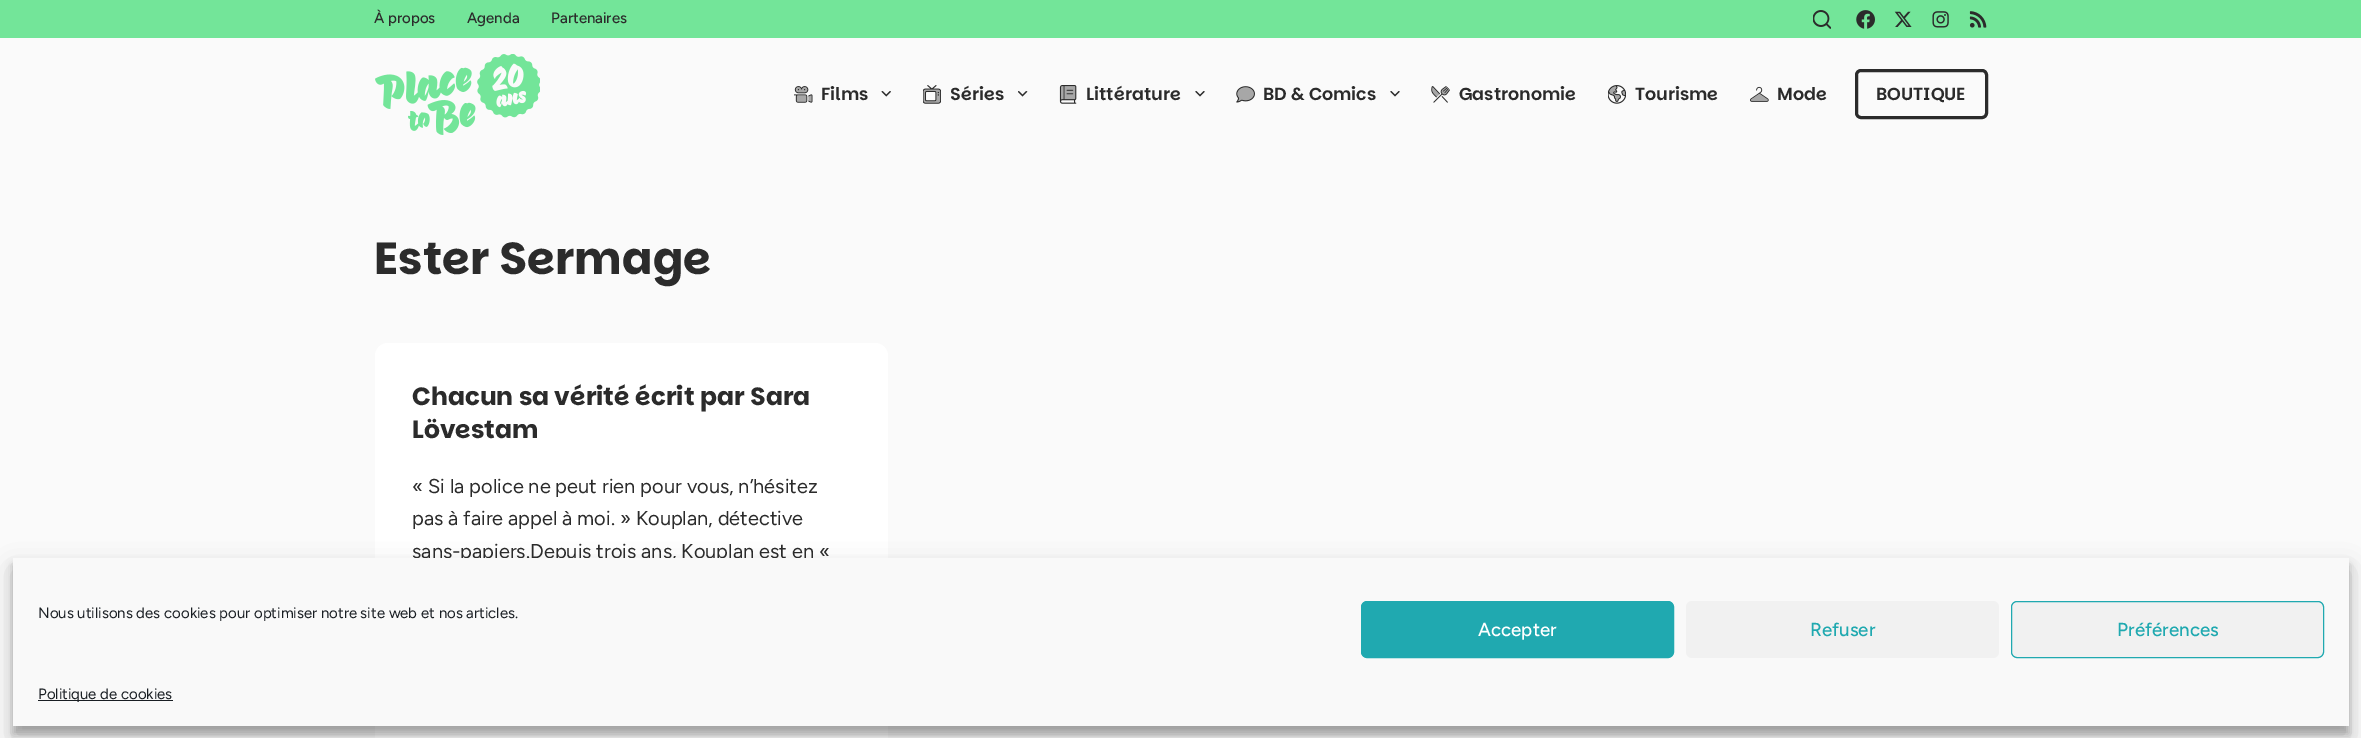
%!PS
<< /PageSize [2361 738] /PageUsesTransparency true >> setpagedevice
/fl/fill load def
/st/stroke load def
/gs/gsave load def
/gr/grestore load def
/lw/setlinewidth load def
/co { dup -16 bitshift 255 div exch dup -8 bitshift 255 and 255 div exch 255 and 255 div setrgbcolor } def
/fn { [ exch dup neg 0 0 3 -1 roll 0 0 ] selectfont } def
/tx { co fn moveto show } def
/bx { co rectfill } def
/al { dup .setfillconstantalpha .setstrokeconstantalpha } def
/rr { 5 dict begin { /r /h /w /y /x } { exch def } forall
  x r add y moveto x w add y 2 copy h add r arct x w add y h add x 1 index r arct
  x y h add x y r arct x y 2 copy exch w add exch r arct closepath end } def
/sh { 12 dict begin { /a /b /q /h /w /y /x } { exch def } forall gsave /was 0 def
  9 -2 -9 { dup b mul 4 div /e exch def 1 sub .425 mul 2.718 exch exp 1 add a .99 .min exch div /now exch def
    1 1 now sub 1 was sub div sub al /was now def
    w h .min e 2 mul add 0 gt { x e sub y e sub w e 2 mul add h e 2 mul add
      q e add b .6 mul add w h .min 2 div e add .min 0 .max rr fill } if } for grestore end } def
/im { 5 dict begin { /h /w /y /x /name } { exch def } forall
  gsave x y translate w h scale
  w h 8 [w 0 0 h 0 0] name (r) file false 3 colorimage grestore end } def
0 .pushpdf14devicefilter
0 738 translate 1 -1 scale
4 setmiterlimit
0 0 2361 738 16#FAFAFA bx
0 0 2361 38 16#73E599 bx
(media/1.raw) 1813 10 18 19 im
(media/2.raw) 1856 10 19 19 im
(media/3.raw) 1894 11 18 16 im
(media/4.raw) 1932 11 17 17 im
(media/5.raw) 1969 11 18 17 im
(media/6.raw) 375 54 165 81 im
(media/7.raw) 794 86 19 17 im
(media/8.raw) 881 91 10 6 im
(media/9.raw) 923 85 18 19 im
(media/10.raw) 1018 91 10 6 im
(media/11.raw) 1059 85 18 19 im
(media/12.raw) 1195 91 10 6 im
(media/13.raw) 1236 86 19 17 im
(media/12.raw) 1390 91 10 6 im
(media/14.raw) 1431 86 19 17 im
(media/15.raw) 1608 85 18 19 im
(media/16.raw) 1750 86 19 16 im
16#2B2B2B co
3 lw
1856.5 70.5 130 47 4.5 rr st
16#FFFFFF co
375 343 513 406 13 rr fl
16#000000 co
13 565 2336 169 0 4 .23 sh
13 570 2336 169 0 12.5 .19 sh
(À propos) 374 23 /Figtree-Medium 15 16#2B2B2B tx
(Agenda) 467 23 /Figtree-Medium 15 16#2B2B2B tx
(Partenaires) 551 23 /Figtree-Medium 15 16#2B2B2B tx
(Films) 821 100 /Parkinsans-SemiBold 17.5 16#2B2B2B tx
(Séries) 950 100 /Parkinsans-SemiBold 17.5 16#2B2B2B tx
(Littérature) 1086 100 /Parkinsans-SemiBold 17.5 16#2B2B2B tx
(BD & Comics) 1263 100 /Parkinsans-SemiBold 17.5 16#2B2B2B tx
(Gastronomie) 1459 100 /Parkinsans-SemiBold 17.5 16#2B2B2B tx
(Tourisme) 1635 100 /Parkinsans-SemiBold 17.5 16#2B2B2B tx
(Mode) 1777 100 /Parkinsans-SemiBold 17.5 16#2B2B2B tx
(BOUTIQUE) 1876 100 /Parkinsans-SemiBold 17.5 16#2B2B2B tx
(Ester Sermage) 374 274 /Parkinsans-Bold 45 16#2B2B2B tx
(Chacun sa vérité écrit par Sara) 412 405 /Parkinsans-Bold 25 16#2B2B2B tx
(Lövestam) 412 438 /Parkinsans-Bold 25 16#2B2B2B tx
(« Si la police ne peut rien pour vous, n’hésitez) 412 493 /Figtree-Regular 20 16#2B2B2B tx
(pas à faire appel à moi. » Kouplan, détective) 412 525 /Figtree-Regular 20 16#2B2B2B tx
(sans-papiers.Depuis trois ans, Kouplan est en «) 412 558 /Figtree-Regular 20 16#2B2B2B tx
13 558 2336 168 16#F9F9F9 bx
(Nous utilisons des cookies pour optimiser notre site web et nos articles.) 38 618 /Figtree-Regular 15 16#191E23 tx
16#20A9B0 co
1361.5 601.5 312 56 5.5 rr gs fl gr
1 lw
st
(Accepter) 1478 636 /Figtree-Medium 18.75 16#FFFFFF tx
16#F1F1F1 co
1686 601 313 57 6 rr fl
(Refuser) 1810 636 /Figtree-Medium 18.75 16#20A9B0 tx
16#F1F1F1 co
2011.5 601.5 312 56 5.5 rr gs fl gr
16#20A9B0 co
st
(Préférences) 2117 636 /Figtree-Medium 18.75 16#20A9B0 tx
38 700 135 1 16#191E23 bx
(Politique de cookies) 38 699 /Figtree-Regular 15 16#191E23 tx
.poppdf14devicefilter showpage
